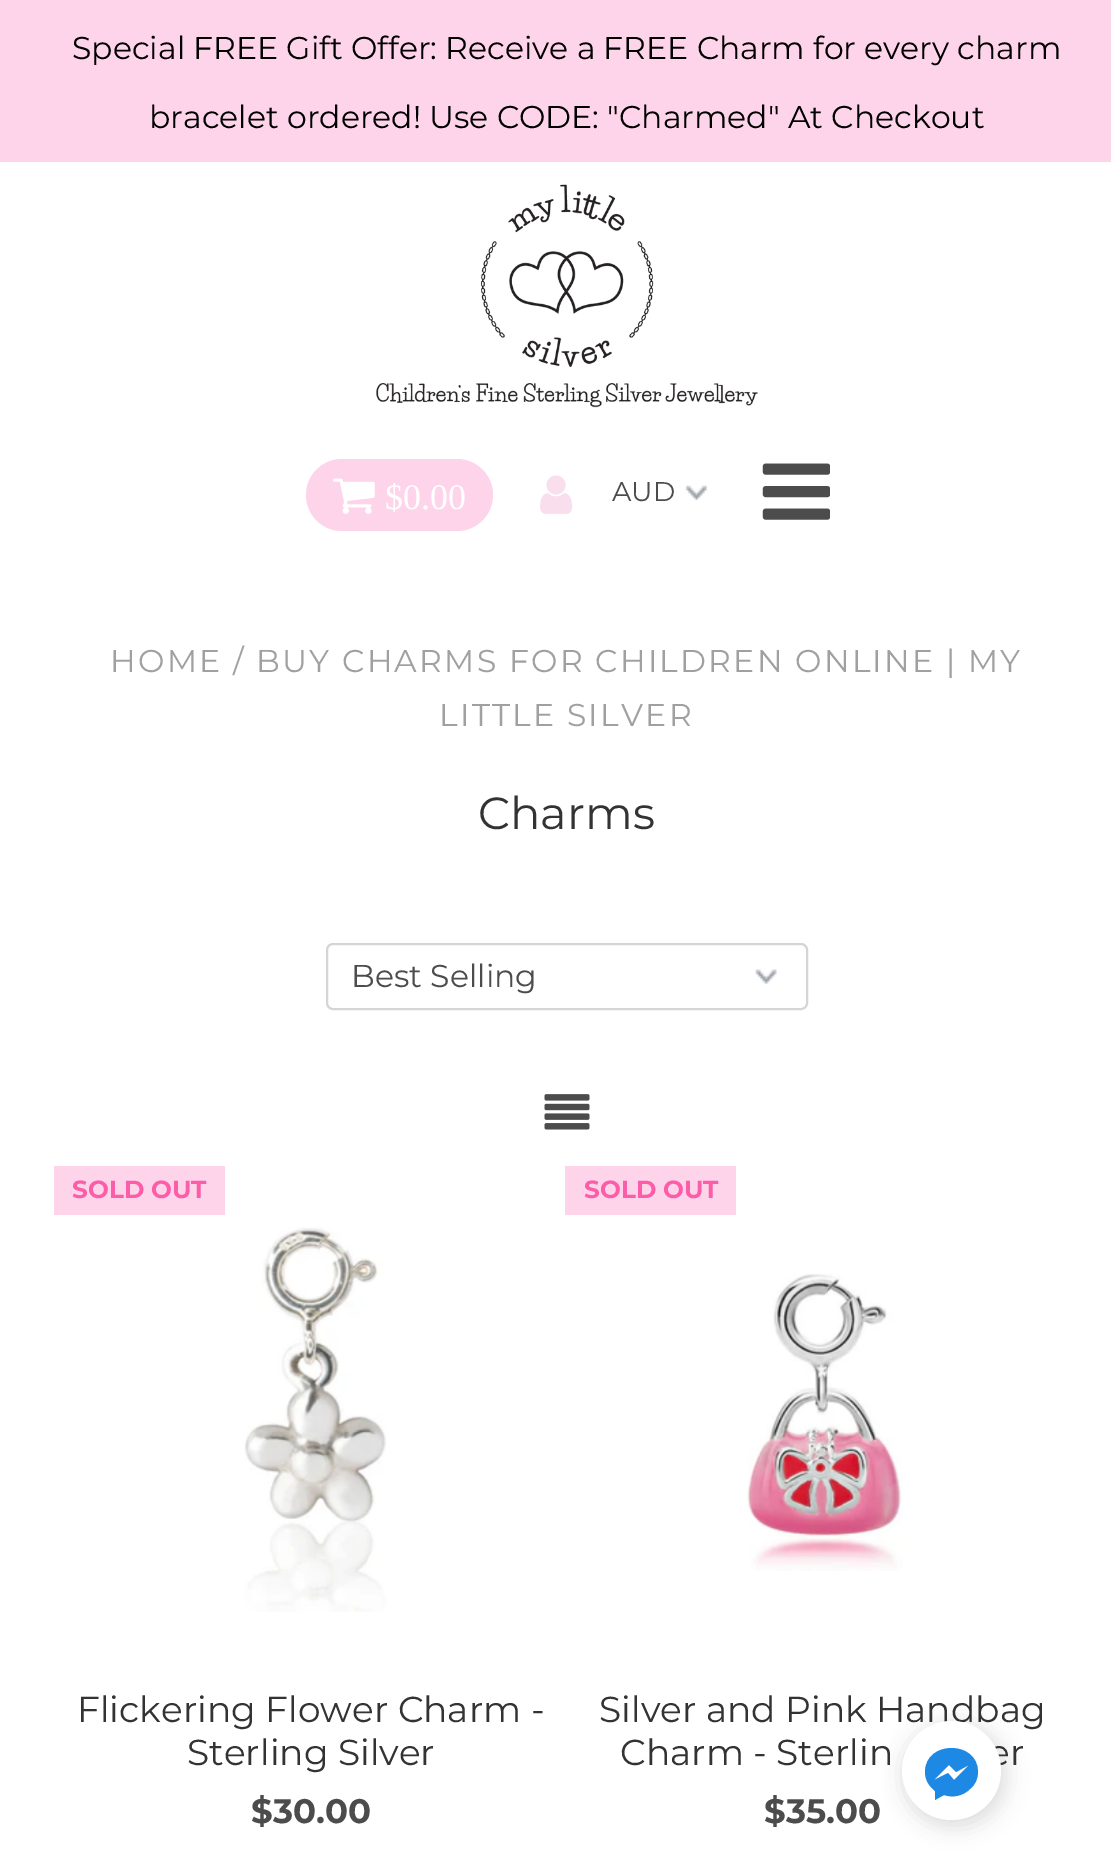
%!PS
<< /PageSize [1111 1853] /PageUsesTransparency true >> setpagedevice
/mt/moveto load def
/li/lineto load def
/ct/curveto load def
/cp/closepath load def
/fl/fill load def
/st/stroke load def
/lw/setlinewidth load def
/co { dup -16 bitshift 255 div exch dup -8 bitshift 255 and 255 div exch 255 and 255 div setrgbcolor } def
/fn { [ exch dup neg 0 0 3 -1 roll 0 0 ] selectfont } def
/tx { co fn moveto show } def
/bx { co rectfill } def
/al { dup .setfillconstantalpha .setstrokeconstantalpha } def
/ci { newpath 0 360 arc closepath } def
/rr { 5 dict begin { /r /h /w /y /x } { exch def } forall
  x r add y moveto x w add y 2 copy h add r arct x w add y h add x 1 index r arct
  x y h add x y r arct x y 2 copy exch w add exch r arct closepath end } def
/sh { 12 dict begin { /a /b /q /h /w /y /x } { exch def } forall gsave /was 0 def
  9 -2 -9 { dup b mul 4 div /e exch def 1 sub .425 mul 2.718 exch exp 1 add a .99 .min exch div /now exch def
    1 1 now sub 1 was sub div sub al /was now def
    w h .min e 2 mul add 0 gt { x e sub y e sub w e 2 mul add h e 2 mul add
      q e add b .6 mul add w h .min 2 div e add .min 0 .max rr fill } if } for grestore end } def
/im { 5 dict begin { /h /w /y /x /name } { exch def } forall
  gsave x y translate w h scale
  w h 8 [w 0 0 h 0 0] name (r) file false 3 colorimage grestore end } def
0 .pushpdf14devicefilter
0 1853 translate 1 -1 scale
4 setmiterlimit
0 0 1111 1853 16#FFFFFF bx
0 0 1111 162 16#FDD4EA bx
(media/1.raw) 376 184 382 224 im
306 459 187 72 36 rr fl
(media/2.raw) 333 478 42 36 im
(media/3.raw) 540 475 33 39 im
(media/4.raw) 685 485 23 16 im
(media/5.raw) 762 463 68 57 im
(media/6.raw) 755 969 22 15 im
16#D5D5D5 co
2 lw
327 944 480 65 6 rr st
(media/7.raw) 544 1094 46 36 im
54 1166 171 49 16#FDD4EA bx
(media/8.raw) 244 1227 143 385 im
565 1166 171 49 16#FDD4EA bx
(media/9.raw) 747 1274 156 297 im
16#000000 co
902 1721 108 108 54 10 .07 sh
902 1726 99 99 49.5 11 .05 sh
(Special FREE Gift Offer: Receive a FREE Charm for every charm) 72 59 /Montserrat-Regular 31.5 16#000000 tx
(bracelet ordered! Use CODE: "Charmed" At Checkout) 149 128 /Montserrat-Regular 31.5 16#000000 tx
($0.00) 385 509 /LiberationSerif-Regular 36 16#FFFFFF tx
(AUD) 612 501 /Montserrat-Regular 27 16#4C4C4C tx
/Montserrat-Regular 31.5 fn
16#A0A0A0 co
110 672 mt 2.25 0 (HOME / BUY CHARMS FOR CHILDREN ONLINE | MY) ashow
439 726 mt 2.25 0 (LITTLE SILVER) ashow
(Charms) 478 829 /Montserrat-Regular 45 16#333333 tx
(Best Selling) 351 987 /Montserrat-Regular 31.5 16#4C4C4C tx
(SOLD OUT) 72 1198 /Montserrat-Bold 24.75 16#FD5CA8 tx
(Flickering Flower Charm -) 77 1722 /Montserrat-Regular 36 16#333333 tx
(Sterling Silver) 187 1765 /Montserrat-Regular 36 16#333333 tx
($30.00) 251 1823 /Montserrat-Bold 34 16#4C4C4C tx
(SOLD OUT) 584 1198 /Montserrat-Bold 24.75 16#FD5CA8 tx
(Silver and Pink Handbag) 599 1722 /Montserrat-Regular 36 16#333333 tx
(Charm - Sterlin) 620 1765 /Montserrat-Regular 36 16#333333 tx
(er) 988 1765 /Montserrat-Regular 36 16#333333 tx
($35.00) 764 1823 /Montserrat-Bold 34 16#4C4C4C tx
16#FFFFFF co
951.5 1770.5 49.5 ci fl
16#1E88E5 co
925 1772 mt 925 1740 978 1740 978 1772 ct 978 1779 975 1785 970 1789 ct 963 1796 953 1798 944 1795 ct 935 1800 li 935 1791 li 929 1786 925 1780 925 1772 ct cp 948 1773 mt 954 1780 li 969 1765 li 956 1772 li 949 1765 li 934 1780 li cp eofill
.poppdf14devicefilter showpage
